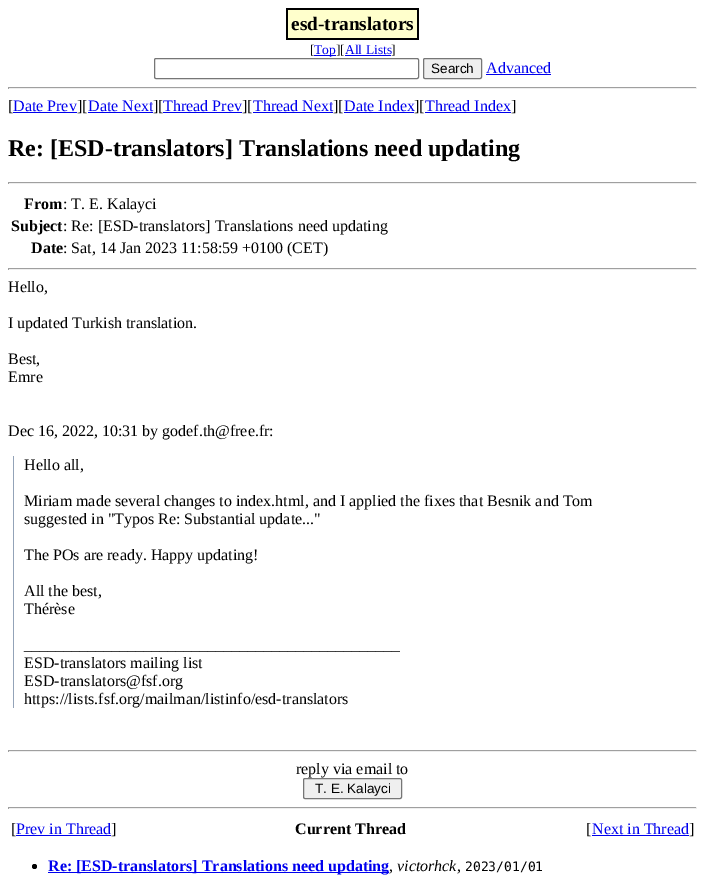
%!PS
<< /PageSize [705 882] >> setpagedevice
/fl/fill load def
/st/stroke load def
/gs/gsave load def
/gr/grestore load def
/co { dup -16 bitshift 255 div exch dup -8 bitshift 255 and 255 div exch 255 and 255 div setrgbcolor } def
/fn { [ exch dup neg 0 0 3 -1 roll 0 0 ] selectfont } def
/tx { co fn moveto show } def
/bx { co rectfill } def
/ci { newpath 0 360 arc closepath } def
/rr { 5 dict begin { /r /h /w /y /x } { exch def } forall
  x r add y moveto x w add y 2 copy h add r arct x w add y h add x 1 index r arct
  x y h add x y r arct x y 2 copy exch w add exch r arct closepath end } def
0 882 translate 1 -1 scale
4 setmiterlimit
0 0 705 882 16#FFFFFF bx
286 8 133 32 16#000000 bx
288 10 129 28 16#FFFFCC bx
314 55 22 1 16#0000EE bx
345 55 46 1 16#0000EE bx
16#767676 co
154.5 58.5 264 20 1.5 rr st
16#EFEFEF co
423.5 58.5 58 20 1.5 rr gs fl gr
16#767676 co
st
486 74 65 1 16#0000EE bx
8 87 689 1 16#9F9F9F bx
696 87 1 2 16#EEEEEE bx
8 88 689 1 16#EEEEEE bx
8 87 1 2 16#9F9F9F bx
13 112 64 1 16#0000EE bx
88 112 65 1 16#0000EE bx
163 112 79 1 16#0000EE bx
253 112 80 1 16#0000EE bx
344 112 70 1 16#0000EE bx
425 112 86 1 16#0000EE bx
8 182 689 1 16#9F9F9F bx
696 182 1 2 16#EEEEEE bx
8 183 689 1 16#EEEEEE bx
8 182 1 2 16#9F9F9F bx
8 268 689 1 16#9F9F9F bx
696 268 1 2 16#EEEEEE bx
8 269 689 1 16#EEEEEE bx
8 268 1 2 16#9F9F9F bx
13 456 1 252 16#93A3B8 bx
8 750 689 1 16#9F9F9F bx
696 750 1 2 16#EEEEEE bx
8 751 689 1 16#EEEEEE bx
8 750 1 2 16#9F9F9F bx
16#EFEFEF co
303.5 778.5 98 20 1.5 rr gs fl gr
16#767676 co
st
8 807 689 1 16#9F9F9F bx
696 807 1 2 16#EEEEEE bx
8 808 689 1 16#EEEEEE bx
8 807 1 2 16#9F9F9F bx
16 835 95 1 16#0000EE bx
592 835 97 1 16#0000EE bx
16#000000 co
34.5 866.5 2.5 ci fl
48 872 341 1 16#0000EE bx
(esd-translators) 291 30 /LiberationSerif-Bold 19.25 16#000000 tx
([) 310 54 /LiberationSerif-Regular 13.5 16#000000 tx
(Top) 314 54 /LiberationSerif-Regular 13.5 16#0000EE tx
(][) 336 54 /LiberationSerif-Regular 13.5 16#000000 tx
(All Lists) 345 54 /LiberationSerif-Regular 13.5 16#0000EE tx
(]) 391 54 /LiberationSerif-Regular 13.5 16#000000 tx
(Search) 431 73 /LiberationSans-Regular 13.5 16#000000 tx
(Advanced) 486 73 /LiberationSerif-Regular 16 16#0000EE tx
([) 8 111 /LiberationSerif-Regular 16 16#000000 tx
(Date Prev) 13 111 /LiberationSerif-Regular 16 16#0000EE tx
(][) 77 111 /LiberationSerif-Regular 16 16#000000 tx
(Date Next) 88 111 /LiberationSerif-Regular 16 16#0000EE tx
(][) 153 111 /LiberationSerif-Regular 16 16#000000 tx
(Thread Prev) 163 111 /LiberationSerif-Regular 16 16#0000EE tx
(][) 242 111 /LiberationSerif-Regular 16 16#000000 tx
(Thread Next) 253 111 /LiberationSerif-Regular 16 16#0000EE tx
(][) 333 111 /LiberationSerif-Regular 16 16#000000 tx
(Date Index) 344 111 /LiberationSerif-Regular 16 16#0000EE tx
(][) 414 111 /LiberationSerif-Regular 16 16#000000 tx
(Thread Index) 425 111 /LiberationSerif-Regular 16 16#0000EE tx
(]) 511 111 /LiberationSerif-Regular 16 16#000000 tx
(Re: [ESD-translators] Translations need updating) 8 156 /LiberationSerif-Bold 24 16#000000 tx
(From) 24 209 /LiberationSerif-Bold 16 16#000000 tx
(: T. E. Kalayci) 63 209 /LiberationSerif-Regular 16 16#000000 tx
(Subject) 11 231 /LiberationSerif-Bold 16 16#000000 tx
(: Re: [ESD-translators] Translations need updating) 63 231 /LiberationSerif-Regular 16 16#000000 tx
(Date) 31 253 /LiberationSerif-Bold 16 16#000000 tx
(: Sat, 14 Jan 2023 11:58:59 +0100 \(CET\)) 63 253 /LiberationSerif-Regular 16 16#000000 tx
(Hello,) 8 292 /LiberationSerif-Regular 16 16#000000 tx
(I updated Turkish translation.) 8 328 /LiberationSerif-Regular 16 16#000000 tx
(Best,) 8 364 /LiberationSerif-Regular 16 16#000000 tx
(Emre) 8 382 /LiberationSerif-Regular 16 16#000000 tx
(Dec 16, 2022, 10:31 by godef.th@free.fr:) 8 436 /LiberationSerif-Regular 16 16#000000 tx
(Hello all,) 24 470 /LiberationSerif-Regular 16 16#000000 tx
(Miriam made several changes to index.html, and I applied the fixes that Besnik and Tom) 24 506 /LiberationSerif-Regular 16 16#000000 tx
(suggested in "Typos Re: Substantial update...") 24 524 /LiberationSerif-Regular 16 16#000000 tx
(The POs are ready. Happy updating!) 24 560 /LiberationSerif-Regular 16 16#000000 tx
(All the best,) 24 596 /LiberationSerif-Regular 16 16#000000 tx
(Thérèse) 24 614 /LiberationSerif-Regular 16 16#000000 tx
(_______________________________________________) 24 650 /LiberationSerif-Regular 16 16#000000 tx
(ESD-translators mailing list) 24 668 /LiberationSerif-Regular 16 16#000000 tx
(ESD-translators@fsf.org) 24 686 /LiberationSerif-Regular 16 16#000000 tx
(https://lists.fsf.org/mailman/listinfo/esd-translators) 24 704 /LiberationSerif-Regular 16 16#000000 tx
(reply via email to) 296 774 /LiberationSerif-Regular 16 16#000000 tx
(T. E. Kalayci) 315 793 /LiberationSans-Regular 13.5 16#000000 tx
([) 11 834 /LiberationSerif-Regular 16 16#000000 tx
(Prev in Thread) 16 834 /LiberationSerif-Regular 16 16#0000EE tx
(]) 111 834 /LiberationSerif-Regular 16 16#000000 tx
(Current Thread) 295 834 /LiberationSerif-Bold 16 16#000000 tx
([) 586 834 /LiberationSerif-Regular 16 16#000000 tx
(Next in Thread) 592 834 /LiberationSerif-Regular 16 16#0000EE tx
(]) 689 834 /LiberationSerif-Regular 16 16#000000 tx
(Re: [ESD-translators] Translations need updating) 48 871 /LiberationSerif-Bold 16 16#0000EE tx
(victorhck) 397 871 /LiberationSerif-Italic 16 16#000000 tx
(2023/01/01) 465 871 /DejaVuSansMono-Regular 13 16#000000 tx
(,) 389 871 /LiberationSerif-Regular 16 16#000000 tx
(,) 457 871 /LiberationSerif-Regular 16 16#000000 tx
showpage
